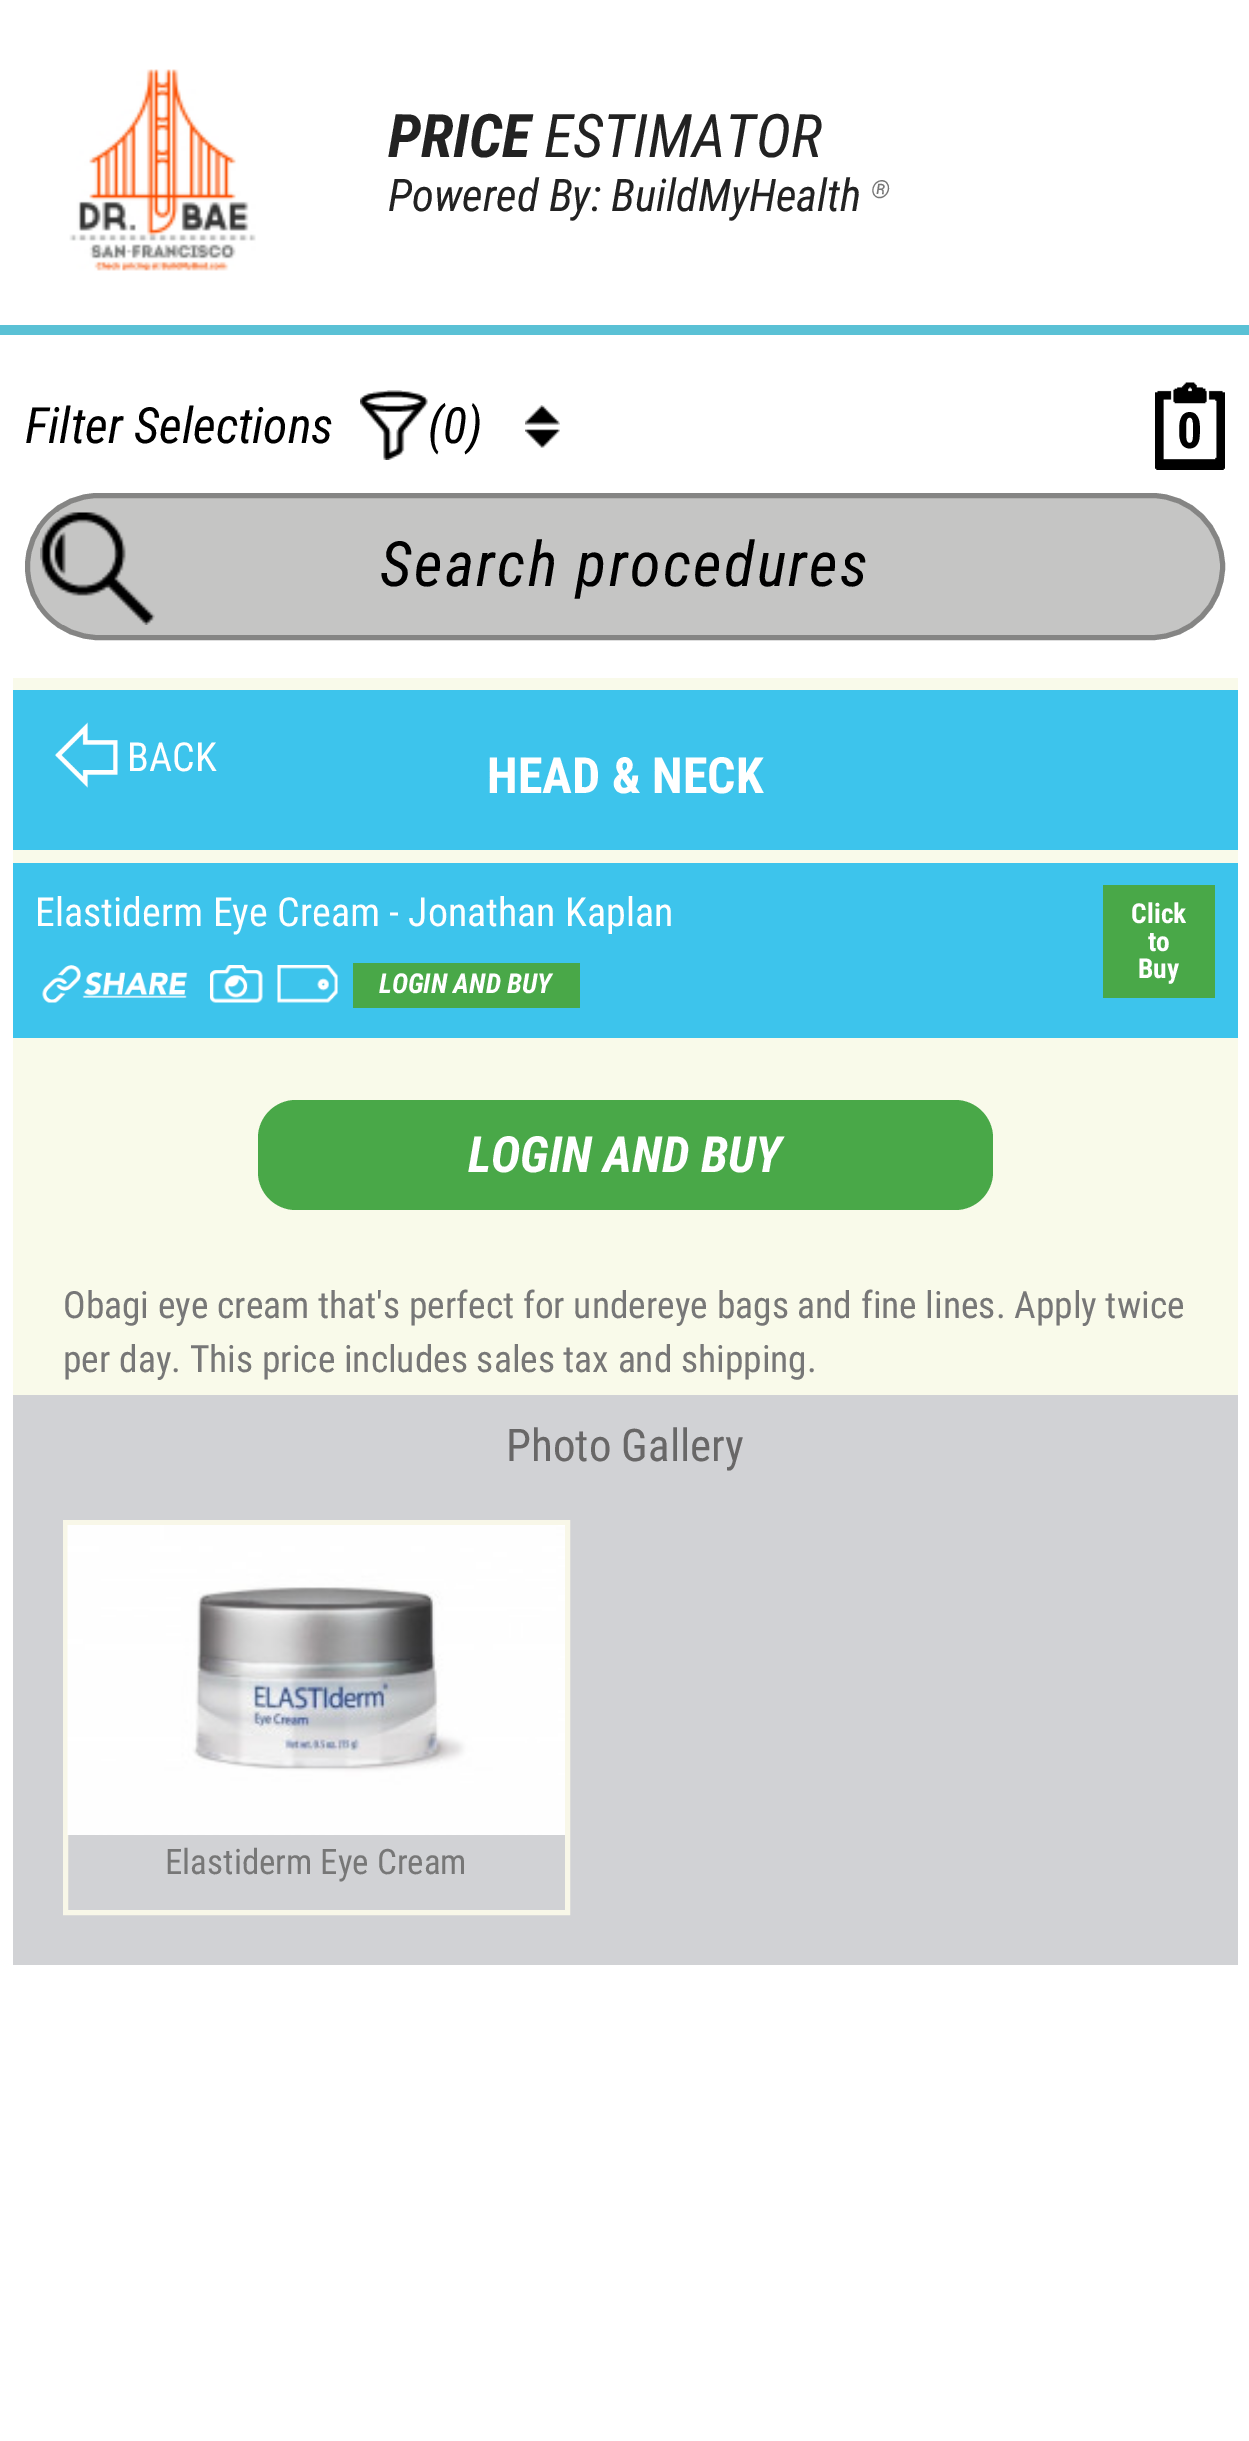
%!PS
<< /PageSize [1249 2441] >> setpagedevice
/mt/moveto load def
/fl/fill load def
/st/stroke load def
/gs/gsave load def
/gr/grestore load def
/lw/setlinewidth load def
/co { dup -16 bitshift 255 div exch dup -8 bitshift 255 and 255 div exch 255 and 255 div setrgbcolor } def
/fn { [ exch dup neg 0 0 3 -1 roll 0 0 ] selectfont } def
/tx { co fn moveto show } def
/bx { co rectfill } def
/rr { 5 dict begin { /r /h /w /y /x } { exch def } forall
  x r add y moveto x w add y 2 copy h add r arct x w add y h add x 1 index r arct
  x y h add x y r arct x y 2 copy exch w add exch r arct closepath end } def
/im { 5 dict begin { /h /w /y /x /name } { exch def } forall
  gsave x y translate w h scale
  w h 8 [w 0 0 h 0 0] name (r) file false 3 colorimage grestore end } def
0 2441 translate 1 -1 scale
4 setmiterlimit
0 0 1249 2441 16#FFFFFF bx
0 325 1249 10 16#5AC1D5 bx
(media/1.raw) 69 69 187 202 im
(media/2.raw) 360 390 68 70 im
(media/3.raw) 525 405 35 43 im
(media/4.raw) 1155 382 70 88 im
16#C5C5C4 co
27.5 495.5 1195 142 71 rr gs fl gr
16#858584 co
5 lw
st
(media/5.raw) 40 512 115 113 im
13 678 1225 717 16#F9FAEA bx
13 690 1225 160 16#3DC4EC bx
(media/6.raw) 55 722 63 66 im
13 863 1225 175 16#3DC4EC bx
1103 885 112 113 16#49A848 bx
(media/7.raw) 42 965 146 38 im
(media/8.raw) 210 965 53 38 im
(media/9.raw) 277 965 61 38 im
353 963 227 45 16#49A848 bx
258 1100 735 110 38 rr fl
13 1395 1225 570 16#D1D2D5 bx
16#F8F7E8 co
65.5 1522.5 502 390 rectstroke
(media/10.raw) 67 1525 498 310 im
(PRICE) 388 157 /RobotoCondensed-BoldItalic 60 16#222222 tx
(ESTIMATOR) 544 157 /RobotoCondensed-Italic 60 16#222222 tx
(Powered By: BuildMyHealth) 388 211 /RobotoCondensed-Italic 45 16#222222 tx
(®) 871 198 /RobotoCondensed-Italic 25 16#777777 tx
(Filter Selections) 25 443 /RobotoCondensed-Italic 50 16#000000 tx
(\(0\)) 428 443 /RobotoCondensed-Italic 50 16#000000 tx
(0) 1177 448 /RobotoCondensed-Bold 50 16#000000 tx
/RobotoCondensed-Italic 62.5 fn
380 586 mt 2.5 0 (Search procedures) ashow
(BACK) 127 771 /RobotoCondensed-Regular 40 16#FFFFFF tx
(HEAD & NECK) 487 793 /RobotoCondensed-Bold 50 16#FFFFFF tx
(Elastiderm Eye Cream - Jonathan Kaplan) 35 926 /RobotoCondensed-Regular 40 16#FFFFFF tx
(Click) 1131 923 /RobotoCondensed-Bold 27.5 16#FFFFFF tx
(to) 1148 951 /RobotoCondensed-Bold 27.5 16#FFFFFF tx
(Buy) 1138 978 /RobotoCondensed-Bold 27.5 16#FFFFFF tx
(LOGIN AND BUY) 379 993 /RobotoCondensed-BoldItalic 27.5 16#FFFFFF tx
(LOGIN AND BUY) 468 1172 /RobotoCondensed-BoldItalic 50 16#FFFFFF tx
(Obagi eye cream that's perfect for undereye bags and fine lines. Apply twice) 63 1318 /RobotoCondensed-Regular 37.5 16#777777 tx
(per day. This price includes sales tax and shipping.) 63 1372 /RobotoCondensed-Regular 37.5 16#777777 tx
(Photo Gallery) 506 1461 /RobotoCondensed-Regular 45 16#686767 tx
(Elastiderm Eye Cream) 165 1874 /RobotoCondensed-Regular 35 16#777777 tx
showpage
